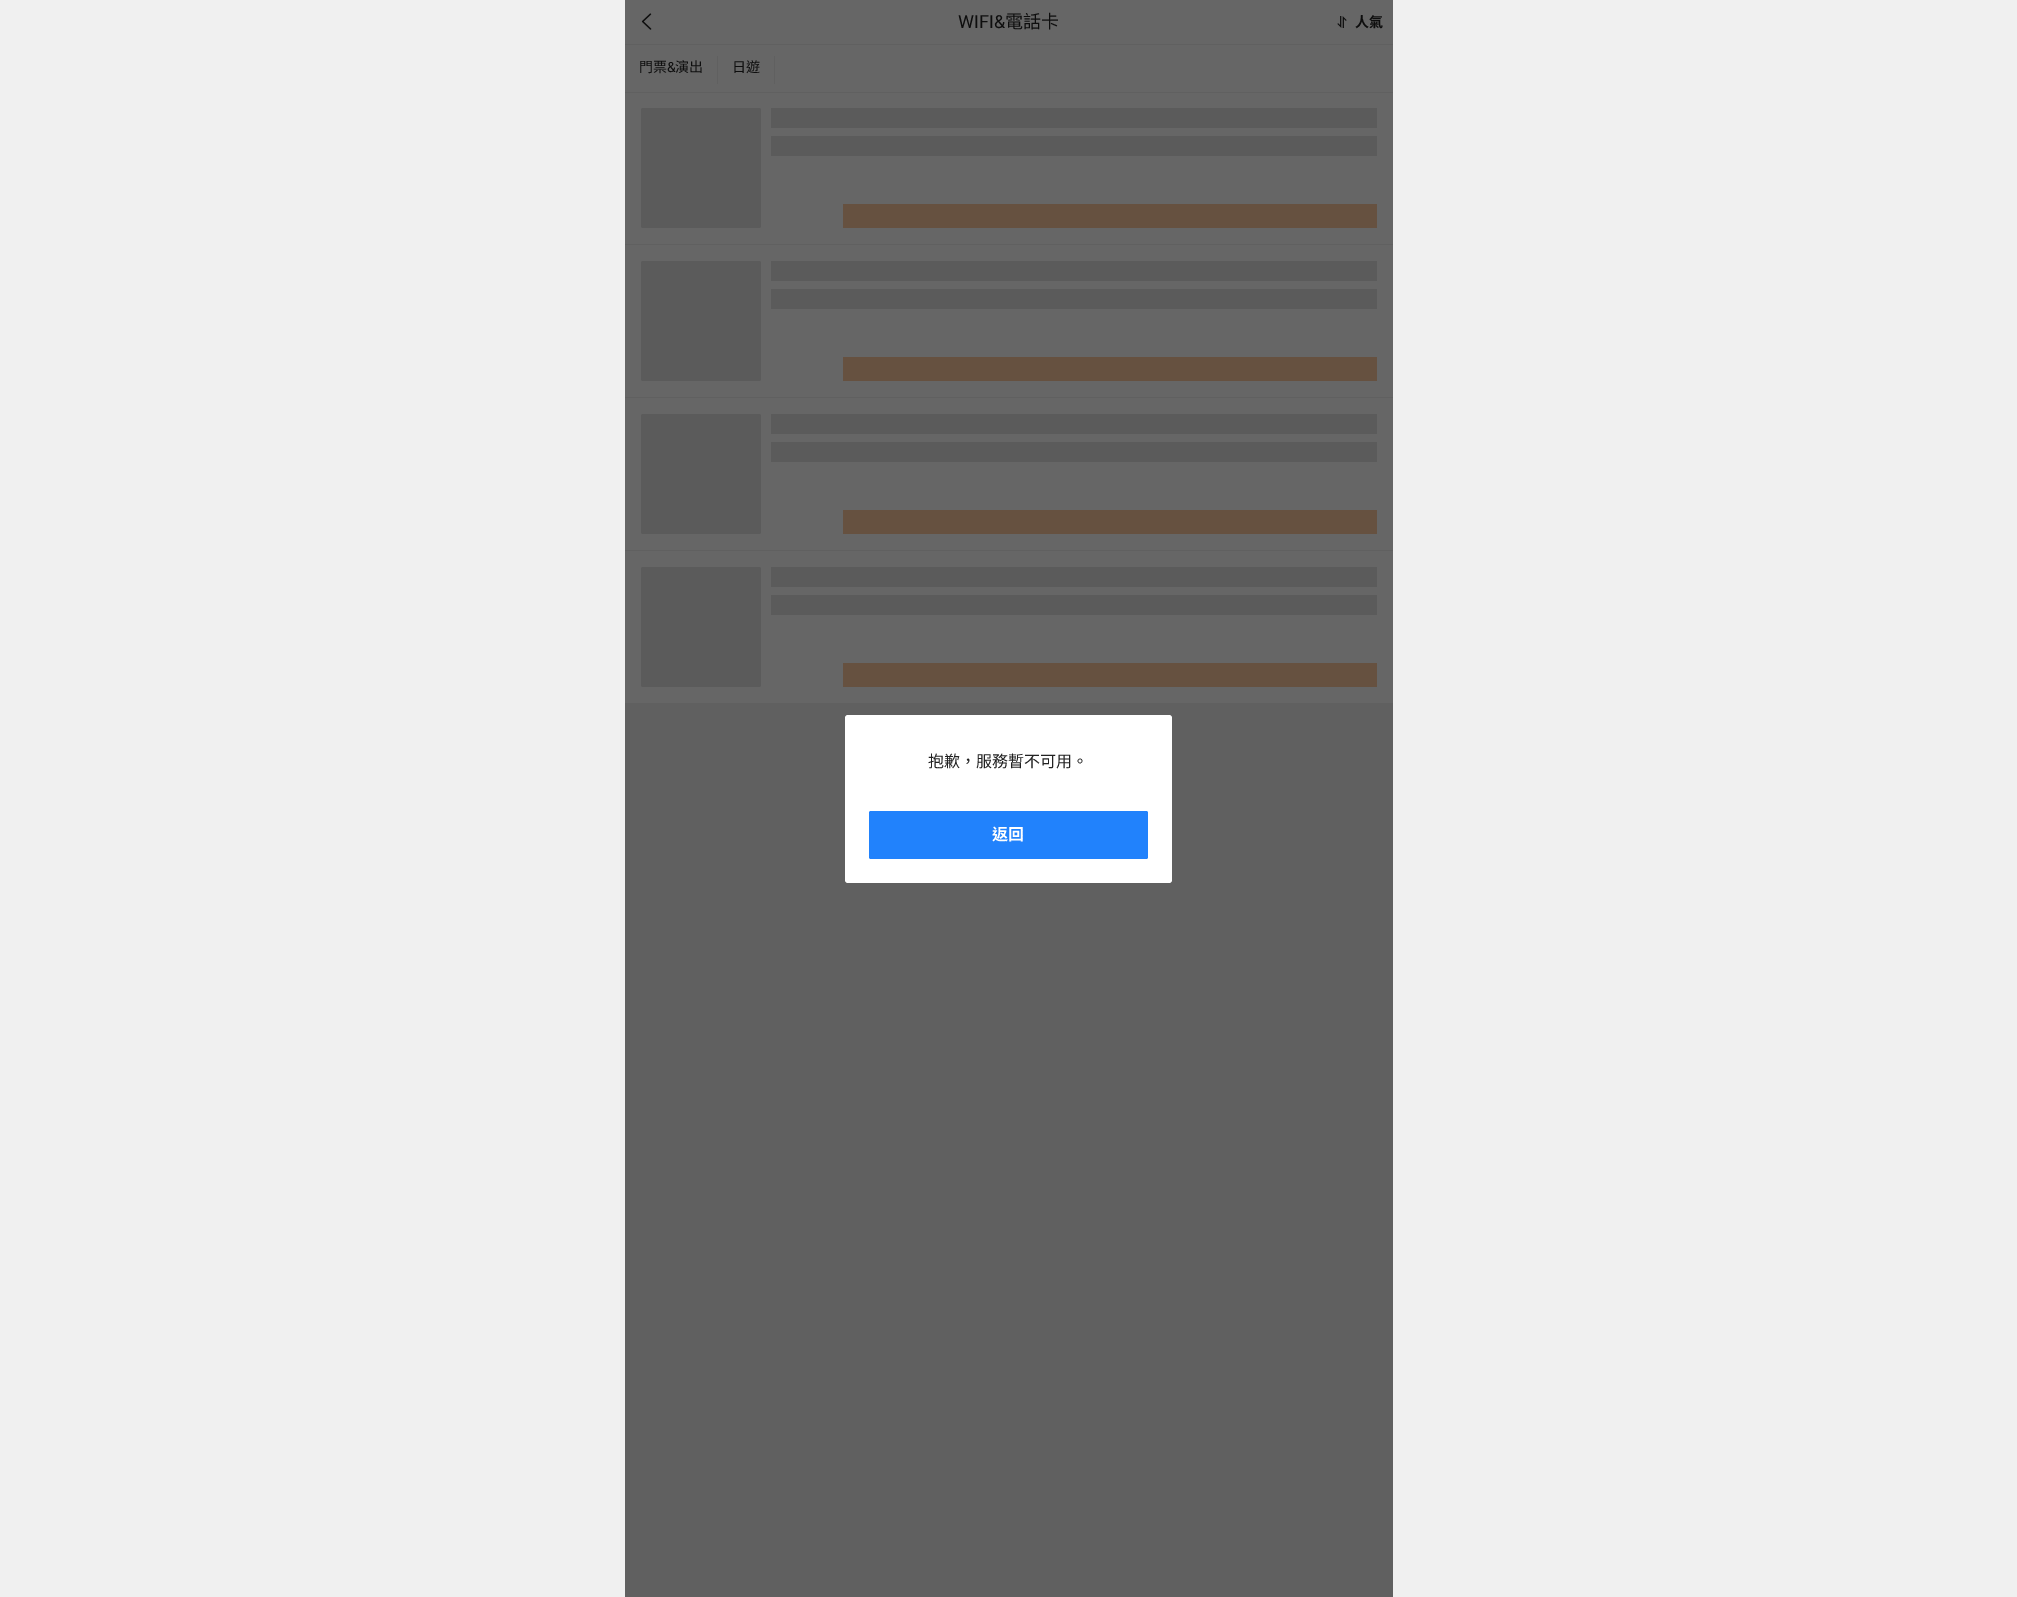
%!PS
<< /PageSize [2017 1597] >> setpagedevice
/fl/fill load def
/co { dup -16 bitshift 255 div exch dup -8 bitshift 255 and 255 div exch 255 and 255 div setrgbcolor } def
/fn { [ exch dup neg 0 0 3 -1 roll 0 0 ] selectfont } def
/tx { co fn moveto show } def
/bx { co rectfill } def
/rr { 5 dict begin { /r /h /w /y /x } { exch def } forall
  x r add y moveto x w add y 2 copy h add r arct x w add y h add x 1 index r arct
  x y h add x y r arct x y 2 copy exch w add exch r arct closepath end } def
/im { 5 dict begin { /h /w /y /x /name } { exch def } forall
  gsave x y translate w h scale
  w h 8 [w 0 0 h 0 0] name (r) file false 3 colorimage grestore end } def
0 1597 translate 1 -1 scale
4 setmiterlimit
0 0 2017 1597 16#F0F0F0 bx
625 703 768 894 16#606060 bx
625 0 768 44 16#666666 bx
625 44 768 1 16#606060 bx
(media/1.raw) 641 13 11 17 im
(media/2.raw) 1337 16 10 12 im
625 45 768 658 16#666666 bx
16#5B5B5B co
641 108 120 120 2 rr fl
771 108 606 20 16#5B5B5B bx
771 136 606 20 16#5B5B5B bx
843 204 534 24 16#665140 bx
625 244 768 1 16#606060 bx
16#5B5B5B co
641 261 120 120 2 rr fl
771 261 606 20 16#5B5B5B bx
771 289 606 20 16#5B5B5B bx
843 357 534 24 16#665140 bx
625 397 768 1 16#606060 bx
16#5B5B5B co
641 414 120 120 2 rr fl
771 414 606 20 16#5B5B5B bx
771 442 606 20 16#5B5B5B bx
843 510 534 24 16#665140 bx
625 550 768 1 16#606060 bx
16#5B5B5B co
641 567 120 120 2 rr fl
771 567 606 20 16#5B5B5B bx
771 595 606 20 16#5B5B5B bx
843 663 534 24 16#665140 bx
625 92 768 1 16#606060 bx
717 56 1 28 16#606060 bx
774 56 1 28 16#606060 bx
16#FFFFFF co
845 715 327 168 3 rr fl
16#2182FC co
869 811 279 48 2 rr fl
(WIFI&) 958 28 /Roboto-Regular 18 16#0E0E0E tx
(電話卡) 1005 28 /NotoSansCJKTC-Regular 18 16#0E0E0E tx
(人氣) 1355 27 /NotoSansCJKTC-Bold 14 16#0E0E0E tx
(門票) 639 72 /NotoSansCJKTC-Regular 14 16#0E0E0E tx
(&) 667 72 /Roboto-Regular 14 16#0E0E0E tx
(演出) 675 72 /NotoSansCJKTC-Regular 14 16#0E0E0E tx
(日遊) 732 72 /NotoSansCJKTC-Regular 14 16#0E0E0E tx
(抱歉，服務暫不可用。) 928 767 /NotoSansCJKTC-Regular 16 16#222222 tx
(返回) 992 840 /NotoSansCJKTC-Bold 16 16#FFFFFF tx
showpage
